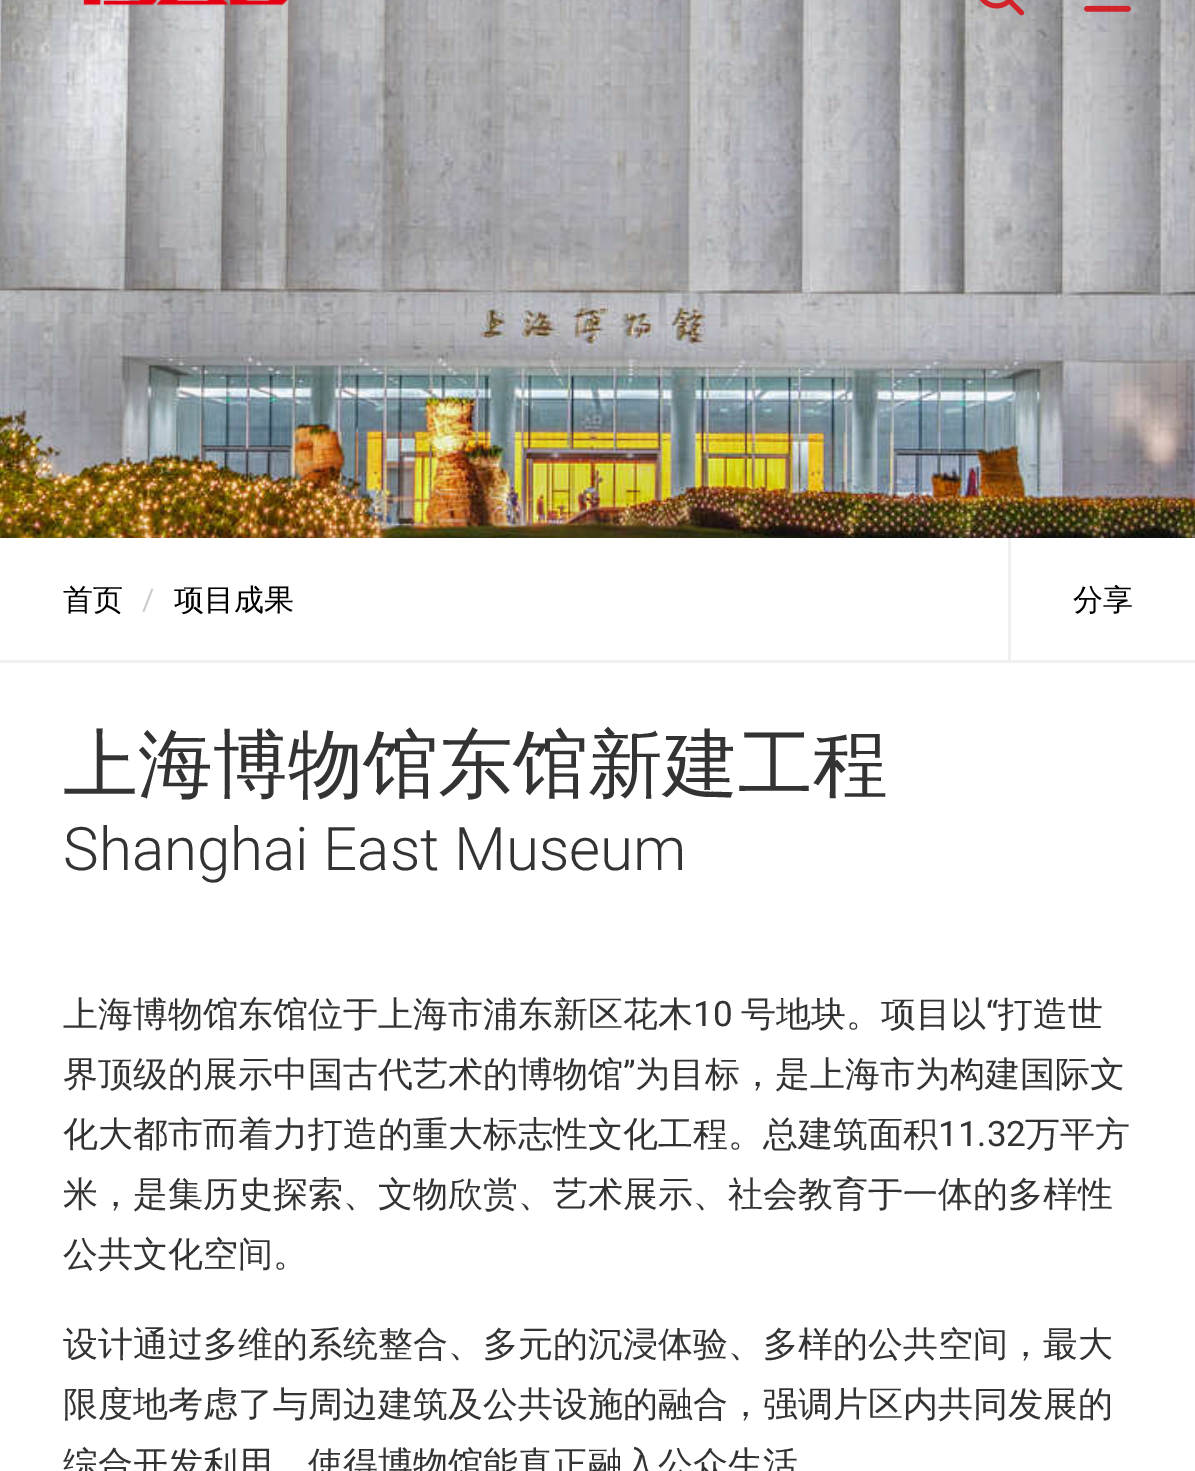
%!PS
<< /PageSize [1195 1471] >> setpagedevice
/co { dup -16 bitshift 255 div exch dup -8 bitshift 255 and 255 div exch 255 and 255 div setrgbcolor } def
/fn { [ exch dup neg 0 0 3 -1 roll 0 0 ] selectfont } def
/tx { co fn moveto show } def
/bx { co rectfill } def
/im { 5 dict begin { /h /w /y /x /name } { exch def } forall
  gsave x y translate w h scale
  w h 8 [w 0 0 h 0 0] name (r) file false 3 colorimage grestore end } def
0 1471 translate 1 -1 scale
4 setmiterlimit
0 0 1195 1471 16#FFFFFF bx
(media/1.raw) 0 0 1195 538 im
(media/2.raw) 83 0 205 6 im
(media/3.raw) 980 0 45 16 im
(media/4.raw) 1084 5 47 7 im
0 660 1195 3 16#F0F0F0 bx
1008 538 3 122 16#F0F0F0 bx
(首页) 63 610 /WenQuanYiZenHei-Medium 30 16#000000 tx
(/) 142 610 /Roboto-Regular 30 16#CCCCCC tx
(项目成果) 174 610 /WenQuanYiZenHei-Medium 30 16#000000 tx
(分享) 1073 610 /WenQuanYiZenHei-Medium 30 16#000000 tx
(上海博物馆东馆新建工程) 63 790 /WenQuanYiZenHei-Medium 75 16#333333 tx
(Shanghai East Museum) 63 870 /Roboto-Light 60 16#333333 tx
(上海博物馆东馆位于上海市浦东新区花木) 63 1026 /WenQuanYiZenHei-Medium 35 16#333333 tx
(10) 693 1026 /Roboto-Regular 35 16#333333 tx
(号地块。项目以) 741 1026 /WenQuanYiZenHei-Medium 35 16#333333 tx
(“) 986 1026 /Roboto-Regular 35 16#333333 tx
(打造世) 998 1026 /WenQuanYiZenHei-Medium 35 16#333333 tx
(界顶级的展示中国古代艺术的博物馆) 63 1086 /WenQuanYiZenHei-Medium 35 16#333333 tx
(”) 623 1086 /Roboto-Regular 35 16#333333 tx
(为目标，是上海市为构建国际文) 635 1086 /WenQuanYiZenHei-Medium 35 16#333333 tx
(化大都市而着力打造的重大标志性文化工程。总建筑面积) 63 1146 /WenQuanYiZenHei-Medium 35 16#333333 tx
(11.32) 938 1146 /Roboto-Regular 35 16#333333 tx
(万平方) 1025 1146 /WenQuanYiZenHei-Medium 35 16#333333 tx
(米，是集历史探索、文物欣赏、艺术展示、社会教育于一体的多样性) 63 1206 /WenQuanYiZenHei-Medium 35 16#333333 tx
(公共文化空间。) 63 1266 /WenQuanYiZenHei-Medium 35 16#333333 tx
(设计通过多维的系统整合、多元的沉浸体验、多样的公共空间，最大) 63 1356 /WenQuanYiZenHei-Medium 35 16#333333 tx
(限度地考虑了与周边建筑及公共设施的融合，强调片区内共同发展的) 63 1416 /WenQuanYiZenHei-Medium 35 16#333333 tx
(综合开发利用，使得博物馆能真正融入公众生活) 63 1476 /WenQuanYiZenHei-Medium 35 16#333333 tx
showpage
